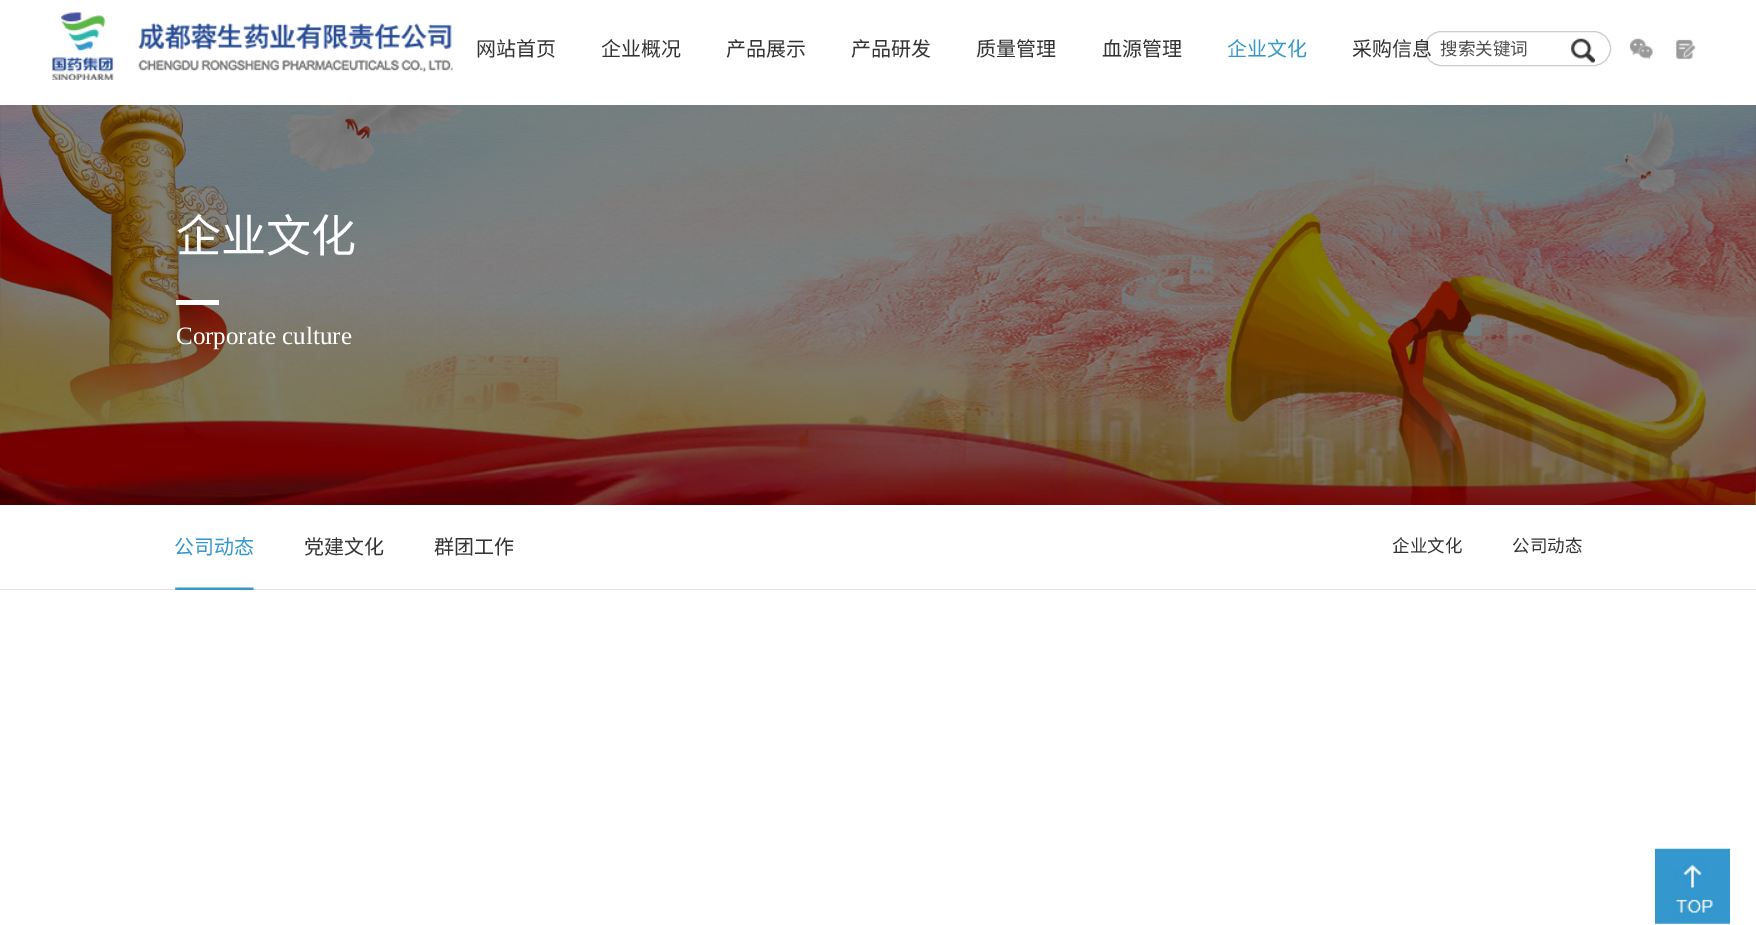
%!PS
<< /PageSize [1756 925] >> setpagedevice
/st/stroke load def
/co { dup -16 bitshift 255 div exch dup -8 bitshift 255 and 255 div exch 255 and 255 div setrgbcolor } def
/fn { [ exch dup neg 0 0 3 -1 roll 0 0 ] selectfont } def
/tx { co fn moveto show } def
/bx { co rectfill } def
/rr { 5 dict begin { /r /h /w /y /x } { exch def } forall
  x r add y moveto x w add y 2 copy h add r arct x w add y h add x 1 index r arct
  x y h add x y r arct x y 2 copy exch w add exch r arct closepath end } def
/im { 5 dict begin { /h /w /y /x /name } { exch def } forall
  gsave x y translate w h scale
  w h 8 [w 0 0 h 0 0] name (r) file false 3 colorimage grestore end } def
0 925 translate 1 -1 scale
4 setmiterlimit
0 0 1756 925 16#FFFFFF bx
(media/1.raw) 52 12 401 68 im
16#CCCCCC co
1424.5 31.5 186 34 17 rr st
(media/2.raw) 1571 38 24 25 im
(media/3.raw) 1630 38 23 21 im
(media/4.raw) 1676 39 20 20 im
(media/5.raw) 0 105 1756 400 im
176 300 43 5 16#FFFFFF bx
0 589 1756 1 16#E5E5E5 bx
(media/6.raw) 175 587 79 3 im
(media/7.raw) 1655 848 75 76 im
(网站首页) 476 56 /NotoSansCJKSC-Regular 20 16#333333 tx
(企业概况) 601 56 /NotoSansCJKSC-Regular 20 16#333333 tx
(产品展示) 726 56 /NotoSansCJKSC-Regular 20 16#333333 tx
(产品研发) 851 56 /NotoSansCJKSC-Regular 20 16#333333 tx
(质量管理) 976 56 /NotoSansCJKSC-Regular 20 16#333333 tx
(血源管理) 1102 56 /NotoSansCJKSC-Regular 20 16#333333 tx
(企业文化) 1227 56 /NotoSansCJKSC-Regular 20 16#3497CE tx
(采购信息) 1352 56 /NotoSansCJKSC-Regular 20 16#333333 tx
(搜索关键词) 1440 55 /NotoSansCJKSC-Regular 17.5 16#4D4D4F tx
(企业文化) 176 252 /NotoSansCJKSC-Regular 45 16#FFFFFF tx
(Corporate culture) 176 344 /LiberationSerif-Regular 25 16#FFFFFF tx
(公司动态) 174 554 /NotoSansCJKSC-Regular 20 16#3497CE tx
(党建文化) 304 554 /NotoSansCJKSC-Regular 20 16#333333 tx
(群团工作) 434 554 /NotoSansCJKSC-Regular 20 16#333333 tx
(企业文化) 1392 552 /NotoSansCJKSC-Regular 17.5 16#333333 tx
(公司动态) 1512 552 /NotoSansCJKSC-Regular 17.5 16#333333 tx
showpage
